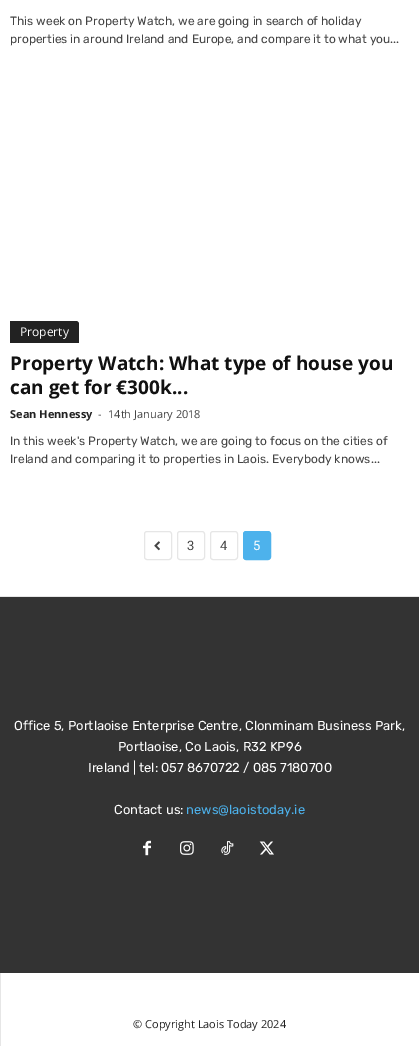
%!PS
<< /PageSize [419 1046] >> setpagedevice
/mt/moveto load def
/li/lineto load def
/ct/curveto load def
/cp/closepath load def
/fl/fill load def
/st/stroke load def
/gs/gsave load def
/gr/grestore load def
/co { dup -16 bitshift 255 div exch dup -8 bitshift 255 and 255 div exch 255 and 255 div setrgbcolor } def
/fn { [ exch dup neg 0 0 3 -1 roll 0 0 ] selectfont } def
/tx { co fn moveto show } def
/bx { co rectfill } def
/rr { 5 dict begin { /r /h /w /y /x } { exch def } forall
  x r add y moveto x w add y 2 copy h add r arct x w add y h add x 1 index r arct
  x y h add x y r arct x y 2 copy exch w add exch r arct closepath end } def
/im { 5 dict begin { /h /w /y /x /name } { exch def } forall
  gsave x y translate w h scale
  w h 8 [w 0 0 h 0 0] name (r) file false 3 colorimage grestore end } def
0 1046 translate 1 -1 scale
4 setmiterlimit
0 0 419 1046 16#333333 bx
0 0 419 596 16#FFFFFF bx
0 596 419 1 16#E6E6E6 bx
16#222222 co
10 321 mt 76 321 li 77.5 321 79 322.5 79 324 ct 79 343 li 10 343 li cp fl
16#E6E6E6 co
144.5 531.5 27 28 2.5 rr st
(media/1.raw) 154 541 6 10 im
177.5 531.5 27 28 2.5 rr st
210.5 531.5 27 28 2.5 rr st
16#4DB2EC co
243.5 531.5 27 28 2.5 rr gs fl gr
st
(media/2.raw) 143 840 8 16 im
(media/3.raw) 180 841 14 14 im
(media/4.raw) 221 841 13 14 im
(media/5.raw) 259 841 15 14 im
1 973 418 73 16#FFFFFF bx
0 973 1 73 16#E6E6E6 bx
(This week on Property Watch, we are going in search of holiday) 10 25 /Rubik-Regular 12 16#444444 tx
(properties in around Ireland and Europe, and compare it to what you...) 10 43 /Rubik-Regular 12 16#444444 tx
(Property) 20 336 /OpenSans-Regular 12 16#FFFFFF tx
(Property Watch: What type of house you) 10 370 /OpenSans-Bold 19 16#111111 tx
(can get for €300k...) 10 394 /OpenSans-Bold 19 16#111111 tx
(Sean Hennessy) 10 418 /OpenSans-Bold 11 16#222222 tx
(-) 98 418 /OpenSans-Regular 11 16#444444 tx
(14th January 2018) 108 418 /OpenSans-Regular 11 16#444444 tx
(In this week's Property Watch, we are going to focus on the cities of) 10 445 /Rubik-Regular 12 16#444444 tx
(Ireland and comparing it to properties in Laois. Everybody knows...) 10 463 /Rubik-Regular 12 16#444444 tx
(3) 187 550 /Roboto-Regular 13 16#444444 tx
(4) 220 550 /Roboto-Regular 13 16#444444 tx
(5) 253 550 /Roboto-Regular 13 16#FFFFFF tx
(Office 5, Portlaoise Enterprise Centre, Clonminam Business Park,) 14 730 /Rubik-Regular 13 16#FFFFFF tx
(Portlaoise, Co Laois, R32 KP96) 118 751 /Rubik-Regular 13 16#FFFFFF tx
(Ireland | tel: 057 8670722 / 085 7180700) 88 772 /Rubik-Regular 13 16#FFFFFF tx
(Contact us:) 114 814 /Rubik-Regular 13 16#FFFFFF tx
(news@laoistoday.ie) 186 814 /Rubik-Regular 13 16#4DB2EC tx
(© Copyright Laois Today 2024) 133 1028 /OpenSans-Regular 11 16#222222 tx
showpage
